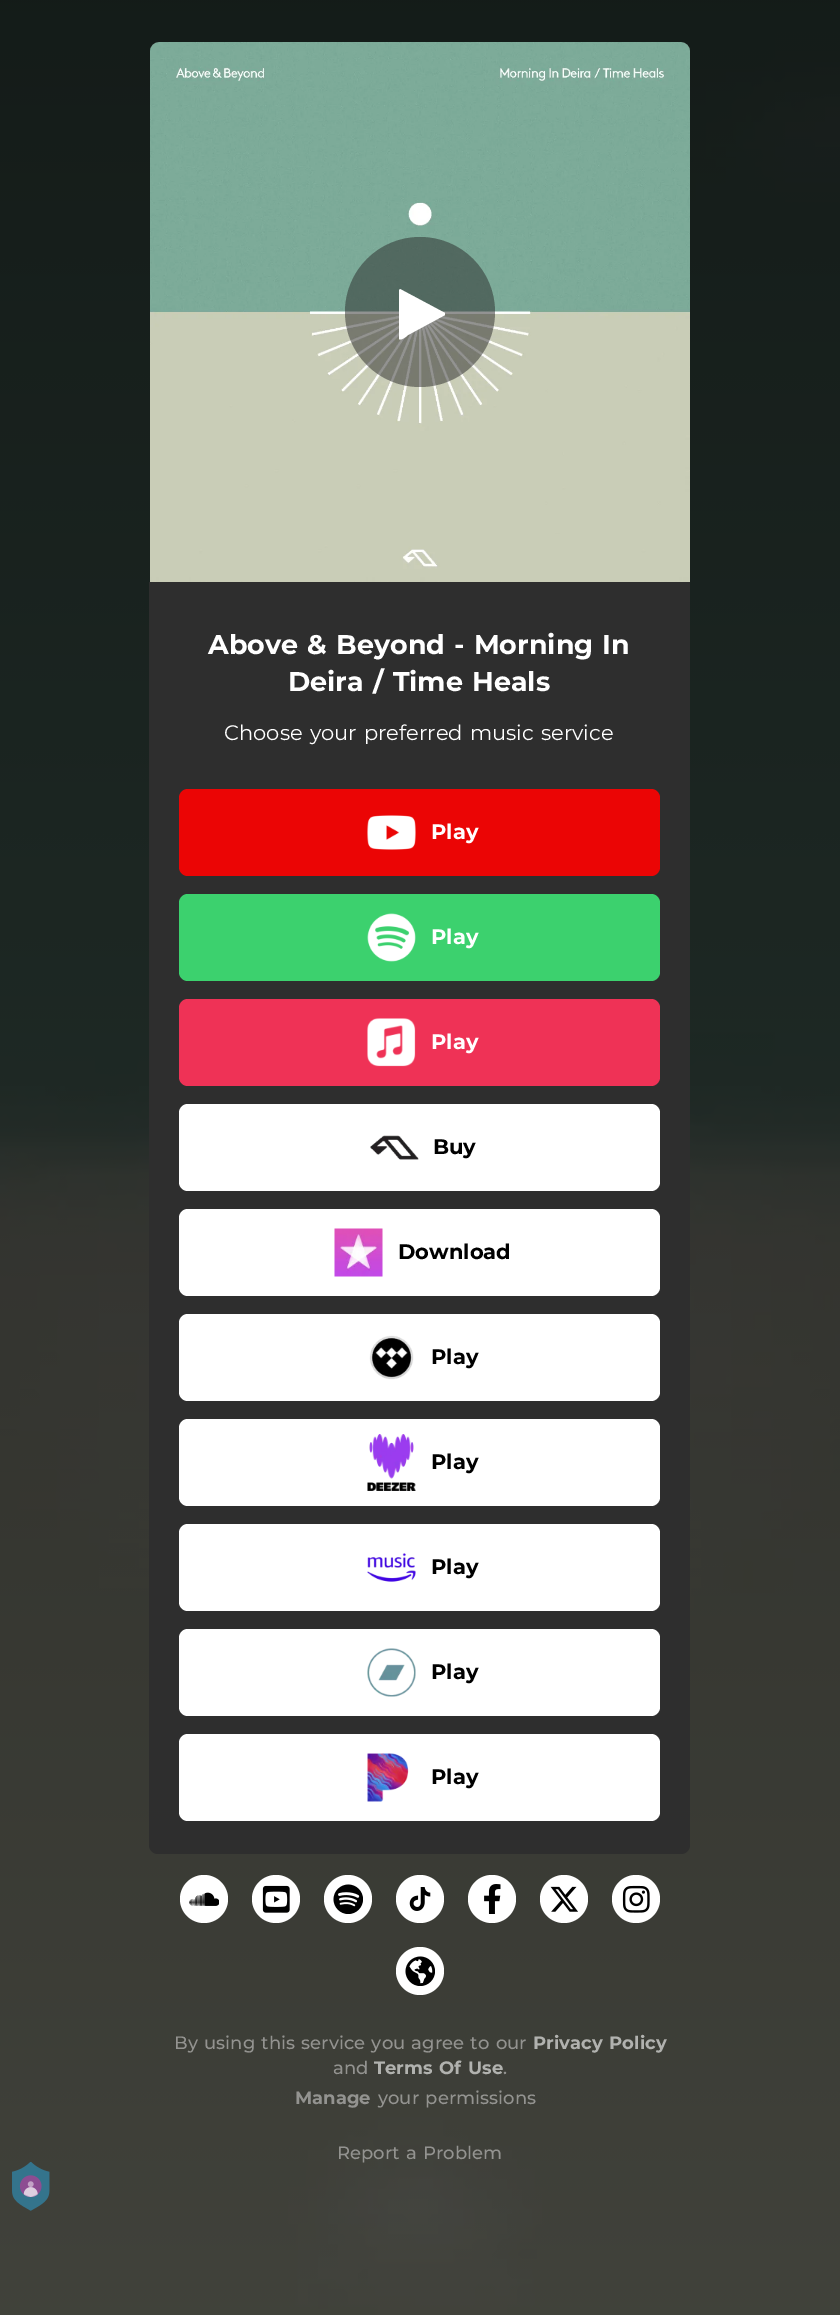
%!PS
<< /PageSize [840 2315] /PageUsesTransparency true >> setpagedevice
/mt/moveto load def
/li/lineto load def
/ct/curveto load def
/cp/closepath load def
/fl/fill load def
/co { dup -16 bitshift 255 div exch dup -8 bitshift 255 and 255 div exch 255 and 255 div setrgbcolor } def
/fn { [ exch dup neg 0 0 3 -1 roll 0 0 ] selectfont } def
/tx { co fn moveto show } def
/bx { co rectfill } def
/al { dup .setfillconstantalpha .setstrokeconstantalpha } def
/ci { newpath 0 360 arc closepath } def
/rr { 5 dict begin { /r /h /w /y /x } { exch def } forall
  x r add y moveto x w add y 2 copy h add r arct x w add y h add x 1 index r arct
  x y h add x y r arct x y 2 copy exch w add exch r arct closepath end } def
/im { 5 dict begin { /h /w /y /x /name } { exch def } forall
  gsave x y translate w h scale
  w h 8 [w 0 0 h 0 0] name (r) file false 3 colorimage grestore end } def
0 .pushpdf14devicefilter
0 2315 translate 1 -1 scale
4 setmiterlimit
0 0 840 2315 16#FFFFFF bx
(media/1.raw) 0 0 840 2315 im
16#2F2F2F co
159 42 mt 681 42 li 686 42 690 46 690 51 ct 690 582 li 150 582 li 150 51 li 150 46 154 42 159 42 ct cp fl
(media/2.raw) 150 42 540 540 im
0.5 al
16#282828 co
420 312 75 ci fl
1 al
16#FFFFFF co
445 315 mt 408 335 li 407 336 401 341 399 339 ct 399 290 li 400 289 li 445 313 li 445 314 li 445 315 li fl
16#2E2E2E co
149 582 mt 690 582 li 690 1845 li 690 1850 686 1854 681 1854 ct 158 1854 li 153 1854 149 1850 149 1845 ct cp fl
16#EB0505 co
179 789 481 87 9 rr fl
(media/3.raw) 367 815 49 35 im
16#3CD16E co
179 894 481 87 9 rr fl
(media/4.raw) 367 913 49 49 im
16#EF3256 co
179 999 481 87 9 rr fl
(media/5.raw) 367 1018 49 49 im
16#FFFFFF co
179 1104 481 87 9 rr fl
(media/6.raw) 370 1135 49 25 im
179 1209 481 87 9 rr fl
(media/7.raw) 334 1228 49 49 im
179 1314 481 87 9 rr fl
(media/8.raw) 369 1335 45 45 im
179 1419 481 87 9 rr fl
(media/9.raw) 367 1434 49 57 im
179 1524 481 87 9 rr fl
(media/10.raw) 367 1553 49 29 im
179 1629 481 87 9 rr fl
(media/11.raw) 367 1648 49 49 im
179 1734 481 87 9 rr fl
(media/12.raw) 367 1753 42 49 im
204 1899 24 ci fl
(media/13.raw) 189 1892 30 14 im
276 1899 24 ci fl
(media/14.raw) 262 1885 28 28 im
348 1899 24 ci fl
(media/15.raw) 333 1884 30 30 im
420 1899 24 ci fl
(media/16.raw) 409 1887 22 24 im
492 1899 24 ci fl
(media/17.raw) 484 1884 17 30 im
564 1899 24 ci fl
(media/18.raw) 550 1886 28 26 im
636 1899 24 ci fl
(media/19.raw) 622 1885 28 28 im
420 1971 24 ci fl
(media/20.raw) 405 1956 30 30 im
(media/21.raw) 12 2162 38 49 im
/Montserrat-Bold 27 fn
208 654 mt 1.5 0 32 (Above & Beyond - Morning In) widthshow
288 691 mt 1.5 0 32 (Deira / Time Heals) widthshow
/Montserrat-Regular 21 fn
224 740 mt 1.5 0 32 (Choose your preferred music service) widthshow
(Play) 431 839 /Montserrat-Bold 21 16#FFFFFF tx
(Play) 431 944 /Montserrat-Bold 21 16#FFFFFF tx
(Play) 431 1049 /Montserrat-Bold 21 16#FFFFFF tx
(Buy) 433 1154 /Montserrat-Bold 21 16#000000 tx
(Download) 398 1259 /Montserrat-Bold 21 16#000000 tx
(Play) 431 1364 /Montserrat-Bold 21 16#000000 tx
(Play) 431 1469 /Montserrat-Bold 21 16#000000 tx
(Play) 431 1574 /Montserrat-Bold 21 16#000000 tx
(Play) 431 1679 /Montserrat-Bold 21 16#000000 tx
(Play) 431 1784 /Montserrat-Bold 21 16#000000 tx
/Montserrat-Medium 18 fn
16#939390 co
174 2049 mt 1.5 0 32 (By using this service you agree to our) widthshow
/Montserrat-Bold 18 fn
16#B1B2AF co
533 2049 mt 1.5 0 32 (Privacy Policy) widthshow
(and) 333 2074 /Montserrat-Medium 18 16#939390 tx
/Montserrat-Bold 18 fn
16#B1B2AF co
374 2074 mt 1.5 0 32 (Terms Of Use) widthshow
(.) 503 2074 /Montserrat-Medium 18 16#939390 tx
(Manage) 295 2104 /Montserrat-Bold 18 16#939390 tx
/Montserrat-Medium 18 fn
378 2104 mt 1.5 0 32 (your permissions) widthshow
337 2159 mt 1.5 0 32 (Report a Problem) widthshow
.poppdf14devicefilter showpage
